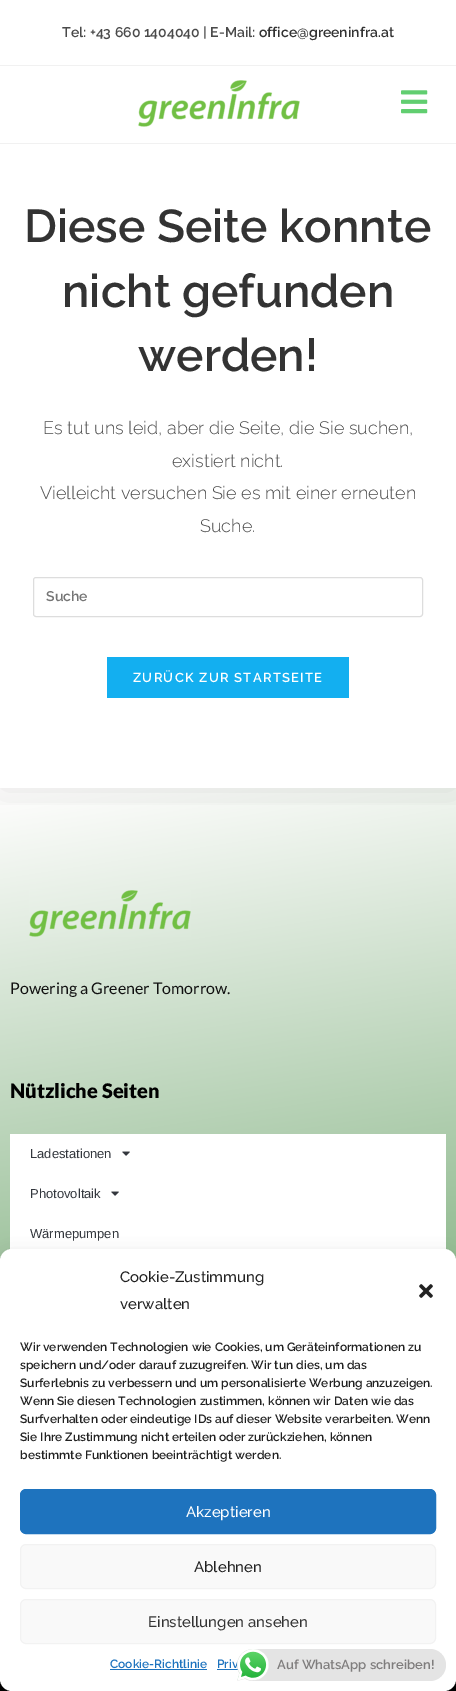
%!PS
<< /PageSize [456 1691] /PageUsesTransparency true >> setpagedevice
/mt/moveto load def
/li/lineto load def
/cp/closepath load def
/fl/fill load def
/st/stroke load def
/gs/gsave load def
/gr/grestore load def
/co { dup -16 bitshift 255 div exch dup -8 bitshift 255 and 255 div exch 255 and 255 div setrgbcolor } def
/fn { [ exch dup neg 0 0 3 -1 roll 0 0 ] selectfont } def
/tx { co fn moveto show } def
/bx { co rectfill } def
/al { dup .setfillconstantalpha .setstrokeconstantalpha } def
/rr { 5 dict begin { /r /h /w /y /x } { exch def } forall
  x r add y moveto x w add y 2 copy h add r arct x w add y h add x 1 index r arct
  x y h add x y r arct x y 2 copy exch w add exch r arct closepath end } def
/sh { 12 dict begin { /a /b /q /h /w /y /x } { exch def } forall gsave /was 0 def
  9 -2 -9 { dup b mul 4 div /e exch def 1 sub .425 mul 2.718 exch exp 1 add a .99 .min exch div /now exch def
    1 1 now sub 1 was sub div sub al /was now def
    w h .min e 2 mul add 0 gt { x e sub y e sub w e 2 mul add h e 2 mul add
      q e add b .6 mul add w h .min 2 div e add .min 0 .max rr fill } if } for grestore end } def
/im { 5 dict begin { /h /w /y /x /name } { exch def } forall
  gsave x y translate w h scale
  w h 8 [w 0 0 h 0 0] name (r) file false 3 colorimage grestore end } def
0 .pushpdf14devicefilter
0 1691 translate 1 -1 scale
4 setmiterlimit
0 0 456 1691 16#FFFFFF bx
0 65 456 1 16#F1F1F1 bx
gs 0 788 mt 456 788 li 456 1261 li 0 1261 li cp clip newpath
<< /ShadingType 2 /ColorSpace /DeviceRGB /Coords [154 764 302 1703] /Extend [true true] /Function << /FunctionType 2 /Domain [0 1] /C0 [1 .996 .996] /C1 [.251 .541 .251] /N 1 >> >> shfill gr
gs
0 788 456 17 rectclip
16#000000 co
0 144 456 644 0 20 .1 sh
gr
0 118 456 25 16#FFFFFF bx
0 143 456 1 16#F1F1F1 bx
(media/1.raw) 138 80 162 47 im
(media/2.raw) 401 90 27 24 im
16#DDDDDD co
33.5 577.5 389 39 2.5 rr st
107 657 242 41 16#13AFF0 bx
(media/3.raw) 29 890 162 47 im
10 1134 436 116 16#FFFFFF bx
(media/4.raw) 122 1151 8 5 im
(media/4.raw) 111 1191 8 5 im
0 1679 456 12 16#000000 bx
0 1255 456 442 12 3 .23 sh
0 1259 456 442 12 10 .19 sh
16#808080 co
386 1617 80 60 2 2.5 1 sh
16#FFFFFF co
0 1249 456 442 12 rr fl
(media/5.raw) 419 1284 14 14 im
16#1E73BE co
20.5 1489.5 415 44 5.5 rr gs fl gr
st
16#F9F9F9 co
20.5 1544.5 415 44 5.5 rr gs fl gr
16#F2F2F2 co
st
16#F9F9F9 co
20.5 1599.5 415 44 5.5 rr gs fl gr
16#F2F2F2 co
st
110 1669 97 1 16#1E73BE bx
217 1669 21 1 16#1E73BE bx
(Tel: +43 660 1404040 | E-Mail:) 62 37 /Raleway-SemiBold 14 16#4A4A4A tx
(office@greeninfra.at) 259 37 /Raleway-SemiBold 14 16#333333 tx
(Diese Seite konnte) 24 242 /Raleway-SemiBold 46 16#333333 tx
(nicht gefunden) 62 307 /Raleway-SemiBold 46 16#333333 tx
(werden!) 138 371 /Raleway-SemiBold 46 16#333333 tx
(Es tut uns leid, aber die Seite, die Sie suchen,) 43 434 /Raleway-Light 18 16#4A4A4A tx
(existiert nicht.) 172 467 /Raleway-Light 18 16#4A4A4A tx
(Vielleicht versuchen Sie es mit einer erneuten) 40 499 /Raleway-Light 18 16#4A4A4A tx
(Suche.) 200 532 /Raleway-Light 18 16#4A4A4A tx
(Suche) 46 601 /Raleway-SemiBold 14 16#757575 tx
/Raleway-SemiBold 13 fn
16#FFFFFF co
133 682 mt 1.3 0 (ZURÜCK ZUR STARTSEITE) ashow
(Powering a Greener Tomorrow.) 10 994 /Lato-Regular 16 16#111111 tx
(Nützliche Seiten) 10 1098 /Lato-Black 20 16#000000 tx
(Ladestationen) 30 1158 /LiberationSans-Regular 13 16#33373D tx
(Photovoltaik) 30 1198 /LiberationSans-Regular 13 16#33373D tx
(Wärmepumpen) 30 1238 /LiberationSans-Regular 13 16#33373D tx
(Cookie-Zustimmung) 120 1282 /Raleway-Medium 15 16#222222 tx
(verwalten) 120 1309 /Raleway-Medium 15 16#222222 tx
(Wir verwenden Technologien wie Cookies, um Geräteinformationen zu) 20 1351 /Raleway-SemiBold 12 16#222222 tx
(speichern und/oder darauf zuzugreifen. Wir tun dies, um das) 20 1369 /Raleway-SemiBold 12 16#222222 tx
(Surferlebnis zu verbessern und um personalisierte Werbung anzuzeigen.) 20 1387 /Raleway-SemiBold 12 16#222222 tx
(Wenn Sie diesen Technologien zustimmen, können wir Daten wie das) 20 1405 /Raleway-SemiBold 12 16#222222 tx
(Surfverhalten oder eindeutige IDs auf dieser Website verarbeiten. Wenn) 20 1423 /Raleway-SemiBold 12 16#222222 tx
(Sie Ihre Zustimmung nicht erteilen oder zurückziehen, können) 20 1441 /Raleway-SemiBold 12 16#222222 tx
(bestimmte Funktionen beeinträchtigt werden.) 20 1459 /Raleway-SemiBold 12 16#222222 tx
(Akzeptieren) 186 1517 /Raleway-Medium 15 16#FFFFFF tx
(Ablehnen) 194 1572 /Raleway-Medium 15 16#222222 tx
(Einstellungen ansehen) 148 1627 /Raleway-Medium 15 16#333333 tx
(Cookie-Richtlinie) 110 1668 /Raleway-SemiBold 12 16#1E73BE tx
(Priv) 217 1668 /Raleway-SemiBold 12 16#1E73BE tx
16#E4E4E4 co
237 1649 209 32 16 rr fl
(media/6.raw) 237 1649 32 32 im
(Auf WhatsApp schreiben!) 277 1669 /Raleway-SemiBold 13 16#7F7D7D tx
.poppdf14devicefilter showpage
